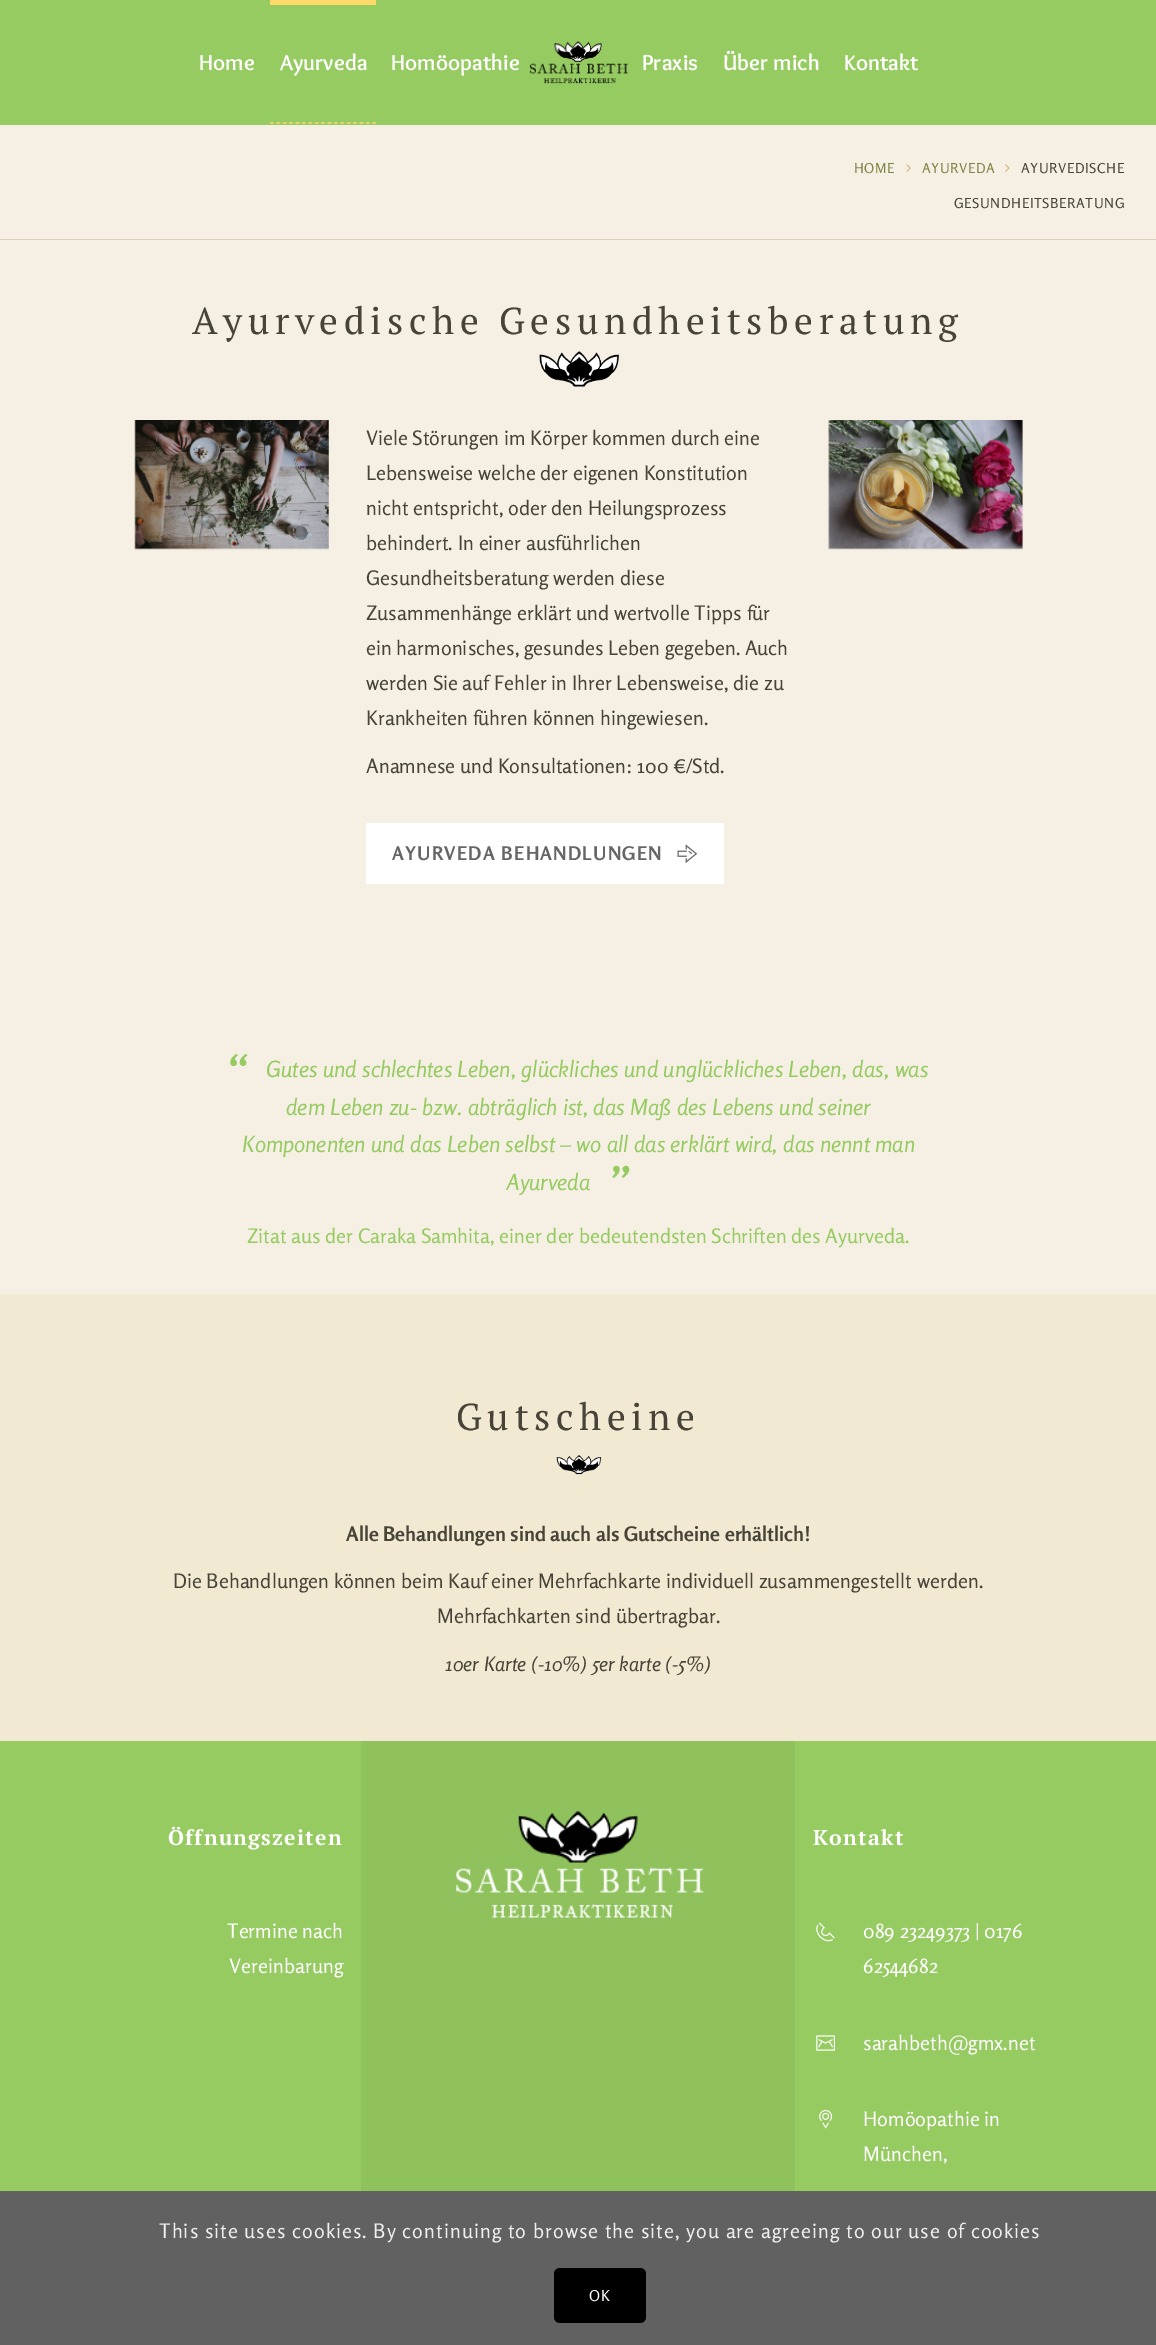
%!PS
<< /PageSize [1156 2345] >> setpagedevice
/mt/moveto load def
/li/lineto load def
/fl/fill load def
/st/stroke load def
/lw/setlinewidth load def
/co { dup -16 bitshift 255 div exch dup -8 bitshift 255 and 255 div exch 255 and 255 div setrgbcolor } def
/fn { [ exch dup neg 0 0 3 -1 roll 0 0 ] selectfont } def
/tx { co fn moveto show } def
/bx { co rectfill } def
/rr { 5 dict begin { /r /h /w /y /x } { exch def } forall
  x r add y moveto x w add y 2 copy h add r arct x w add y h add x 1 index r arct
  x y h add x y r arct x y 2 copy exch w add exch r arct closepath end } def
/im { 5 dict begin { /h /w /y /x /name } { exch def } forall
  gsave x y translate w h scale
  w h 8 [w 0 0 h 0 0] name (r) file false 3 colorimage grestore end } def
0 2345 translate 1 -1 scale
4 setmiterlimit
0 0 1156 2345 16#F5F0E3 bx
0 0 1156 125 16#96CB61 bx
(media/1.raw) 529 41 100 43 im
270 0 106 5 16#FFDA6B bx
1.2 lw
[3.75 2.65] 0 setdash
270 123 mt 376 123 li st
0 239 1156 1 16#DDCFB7 bx
(media/2.raw) 906 164 5 8 im
(media/3.raw) 1005 164 5 8 im
(media/4.raw) 539 351 81 36 im
(media/5.raw) 134 420 195 130 im
366 823 358 61 16#FFFFFF bx
(media/6.raw) 677 844 21 19 im
(media/7.raw) 828 420 195 130 im
0 1294 1156 447 16#F2E9D2 bx
(media/8.raw) 556 1455 46 20 im
0 1741 1156 450 16#96CB61 bx
361 1741 434 450 16#8FC15C bx
(media/9.raw) 455 1811 249 107 im
(media/10.raw) 816 1922 19 20 im
(media/11.raw) 816 2035 19 16 im
(media/12.raw) 819 2109 14 20 im
0 2191 1156 154 16#616161 bx
16#000000 co
554 2268 92 55 6 rr fl
(Home) 199 70 /Overlock-Bold 22.5 16#FFFFFF tx
(Ayurveda) 280 70 /Overlock-Bold 22.5 16#FFFFFF tx
(Homöopathie) 391 70 /Overlock-Bold 22.5 16#FFFFFF tx
(Praxis) 642 70 /Overlock-Bold 22.5 16#FFFFFF tx
(Über mich) 723 70 /Overlock-Bold 22.5 16#FFFFFF tx
(Kontakt) 844 70 /Overlock-Bold 22.5 16#FFFFFF tx
/Rosario-Regular 13.75 fn
16#7E8446 co
854 173 mt .6 0 (HOME) ashow
922 173 mt .6 0 (AYURVEDA) ashow
16#484338 co
1021 173 mt .6 0 (AYURVEDISCHE) ashow
954 208 mt .6 0 (GESUNDHEITSBERATUNG) ashow
/PTSerif-Regular 37.5 fn
192 334 mt 5.6 0 (Ayurvedische Gesundheitsberatung) ashow
(Viele Störungen im Körper kommen durch eine) 366 445 /Rosario-Regular 20 16#484338 tx
(Lebensweise welche der eigenen Konstitution) 366 480 /Rosario-Regular 20 16#484338 tx
(nicht entspricht, oder den Heilungsprozess) 366 515 /Rosario-Regular 20 16#484338 tx
(behindert. In einer ausführlichen) 366 550 /Rosario-Regular 20 16#484338 tx
(Gesundheitsberatung werden diese) 366 585 /Rosario-Regular 20 16#484338 tx
(Zusammenhänge erklärt und wertvolle Tipps für) 366 620 /Rosario-Regular 20 16#484338 tx
(ein harmonisches, gesundes Leben gegeben. Auch) 366 655 /Rosario-Regular 20 16#484338 tx
(werden Sie auf Fehler in Ihrer Lebensweise, die zu) 366 690 /Rosario-Regular 20 16#484338 tx
(Krankheiten führen können hingewiesen.) 366 725 /Rosario-Regular 20 16#484338 tx
(Anamnese und Konsultationen: 100 €/Std.) 366 773 /Rosario-Regular 20 16#484338 tx
/Rosario-Bold 18.75 fn
16#666666 co
392 860 mt 1.25 0 (AYURVEDA BEHANDLUNGEN) ashow
(“) 228 1090 /Rosario-Italic 50 16#96CB61 tx
(Gutes und schlechtes Leben, glückliches und unglückliches Leben, das, was) 266 1077 /Rosario-Italic 22.5 16#96CB61 tx
(dem Leben zu- bzw. abträglich ist, das Maß des Lebens und seiner) 286 1115 /Rosario-Italic 22.5 16#96CB61 tx
(Komponenten und das Leben selbst – wo all das erklärt wird, das nennt man) 242 1152 /Rosario-Italic 22.5 16#96CB61 tx
(Ayurveda) 506 1190 /Rosario-Italic 22.5 16#96CB61 tx
(”) 609 1202 /Rosario-Italic 50 16#96CB61 tx
(Zitat aus der Caraka Samhita, einer der bedeutendsten Schriften des Ayurveda.) 247 1243 /Rosario-Regular 20 16#96CB61 tx
/PTSerif-Regular 37.5 fn
16#484338 co
456 1430 mt 5.6 0 (Gutscheine) ashow
(Alle Behandlungen sind auch als Gutscheine erhältlich!) 346 1541 /Rosario-Bold 20 16#484338 tx
(Die Behandlungen können beim Kauf einer Mehrfachkarte individuell zusammengestellt werden.) 173 1588 /Rosario-Regular 20 16#484338 tx
(Mehrfachkarten sind übertragbar.) 437 1623 /Rosario-Regular 20 16#484338 tx
(10er Karte \(-10%\) 5er karte \(-5%\)) 445 1671 /Rosario-Italic 20 16#484338 tx
/PTSerif-Bold 21.25 fn
16#FFFFFF co
168 1845 mt 1.25 0 (Öffnungszeiten) ashow
(Termine nach) 227 1938 /Rosario-Regular 20 16#FFFFFF tx
(Vereinbarung) 229 1973 /Rosario-Regular 20 16#FFFFFF tx
/PTSerif-Bold 21.25 fn
813 1845 mt 1.25 0 (Kontakt) ashow
(089 23249373 | 0176) 863 1938 /Rosario-Regular 20 16#FFFFFF tx
(62544682) 863 1973 /Rosario-Regular 20 16#FFFFFF tx
(sarahbeth@gmx.net) 863 2050 /Rosario-Regular 20 16#FFFFFF tx
(Homöopathie in) 863 2126 /Rosario-Regular 20 16#FFFFFF tx
(München,) 863 2161 /Rosario-Regular 20 16#FFFFFF tx
16#EFEFEF co
159 2238 mt 1 0 (This site uses cookies. By continuing to browse the site, you are agreeing to our use of cookies) ashow
/Rosario-Regular 15 fn
16#FFFFFF co
589 2301 mt 1 0 (OK) ashow
showpage
